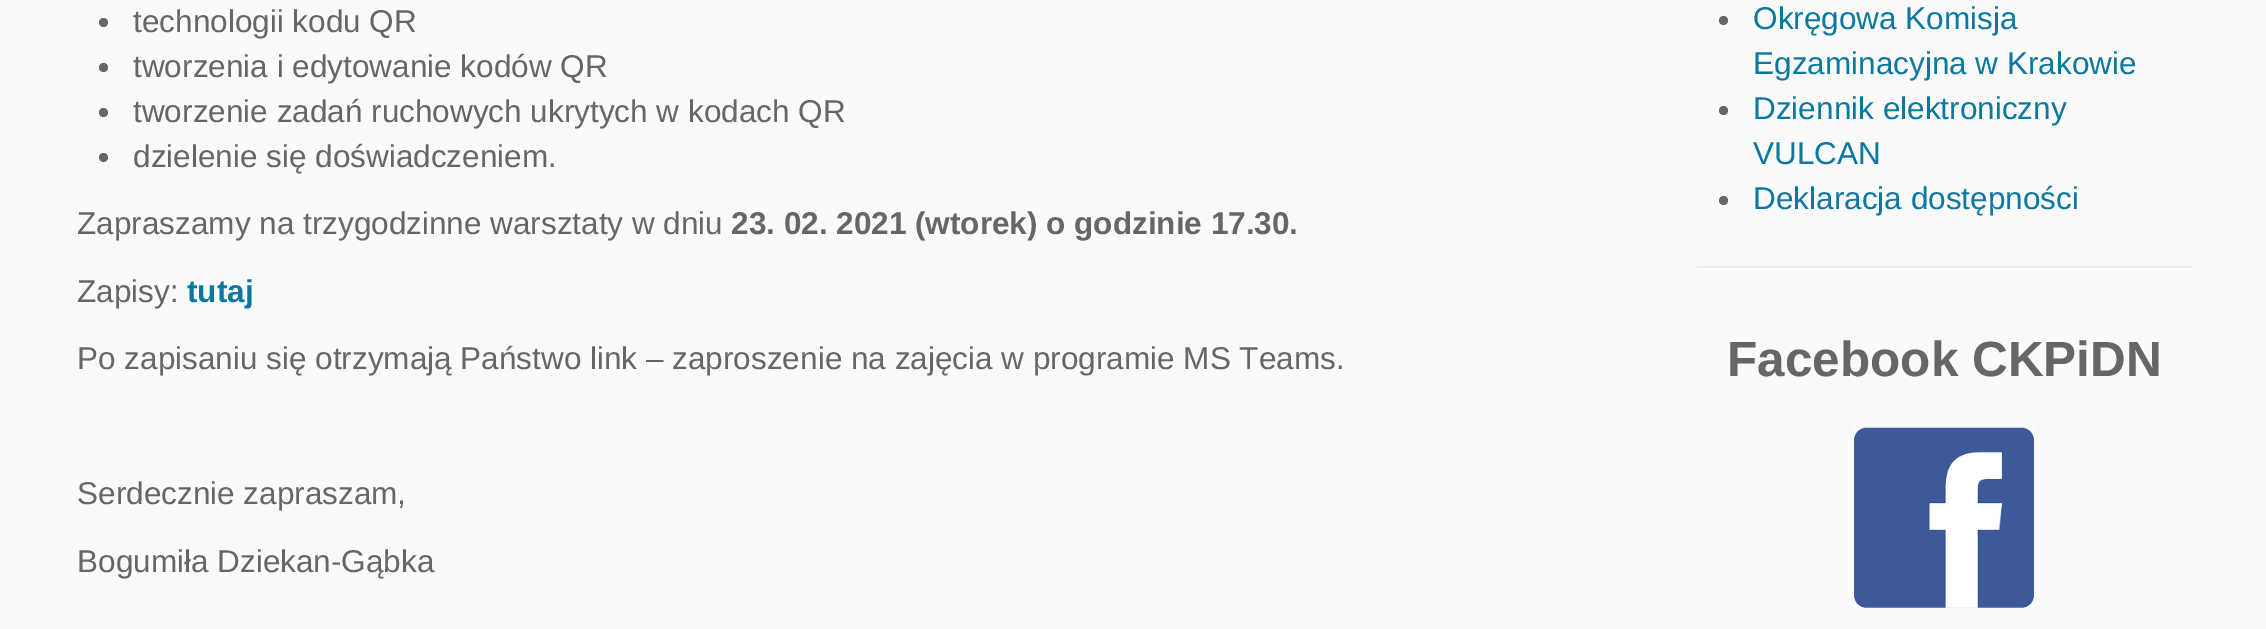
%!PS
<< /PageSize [2266 629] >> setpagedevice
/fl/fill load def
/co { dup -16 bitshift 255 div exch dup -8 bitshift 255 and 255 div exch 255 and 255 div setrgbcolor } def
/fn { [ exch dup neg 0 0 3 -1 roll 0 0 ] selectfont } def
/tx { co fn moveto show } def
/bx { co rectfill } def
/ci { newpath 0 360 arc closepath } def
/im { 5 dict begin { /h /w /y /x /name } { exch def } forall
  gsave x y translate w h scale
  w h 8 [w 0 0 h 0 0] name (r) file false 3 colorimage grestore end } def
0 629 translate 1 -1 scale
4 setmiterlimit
0 0 2266 629 16#FAFAFA bx
16#666666 co
103.5 22.5 4.5 ci fl
103.5 67.5 4.5 ci fl
103.5 112.5 4.5 ci fl
103.5 157.5 4.5 ci fl
1723.5 20.5 4.5 ci fl
1723.5 110.5 4.5 ci fl
1723.5 200.5 4.5 ci fl
1697 266 495 2 16#EEEEEE bx
1697 268 495 2 16#FFFFFF bx
(media/1.raw) 1854 427 180 181 im
(technologii kodu QR) 133 32 /LiberationSans-Regular 31.5 16#666666 tx
(tworzenia i edytowanie kodów QR) 133 77 /LiberationSans-Regular 31.5 16#666666 tx
(tworzenie zadań ruchowych ukrytych w kodach QR) 133 122 /LiberationSans-Regular 31.5 16#666666 tx
(dzielenie się doświadczeniem.) 133 167 /LiberationSans-Regular 31.5 16#666666 tx
(Zapraszamy na trzygodzinne warsztaty w dniu) 77 234 /LiberationSans-Regular 31.5 16#666666 tx
(23. 02. 2021 \(wtorek\) o godzinie 17.30.) 731 234 /LiberationSans-Bold 31.5 16#666666 tx
(Zapisy:) 77 302 /LiberationSans-Regular 31.5 16#666666 tx
(tutaj) 187 302 /LiberationSans-Bold 31.5 16#0B78A1 tx
(Po zapisaniu się otrzymają Państwo link – zaproszenie na zajęcia w programie MS Teams.) 77 369 /LiberationSans-Regular 31.5 16#666666 tx
(Serdecznie zapraszam,) 77 504 /LiberationSans-Regular 31.5 16#666666 tx
(Bogumiła Dziekan-Gąbka) 77 572 /LiberationSans-Regular 31.5 16#666666 tx
(Okręgowa Komisja) 1753 29 /LiberationSans-Regular 31.5 16#0B78A1 tx
(Egzaminacyjna w Krakowie) 1753 74 /LiberationSans-Regular 31.5 16#0B78A1 tx
(Dziennik elektroniczny) 1753 119 /LiberationSans-Regular 31.5 16#0B78A1 tx
(VULCAN) 1753 164 /LiberationSans-Regular 31.5 16#0B78A1 tx
(Deklaracja dostępności) 1753 209 /LiberationSans-Regular 31.5 16#0B78A1 tx
(Facebook CKPiDN) 1727 376 /LiberationSans-Bold 49.5 16#666666 tx
showpage
